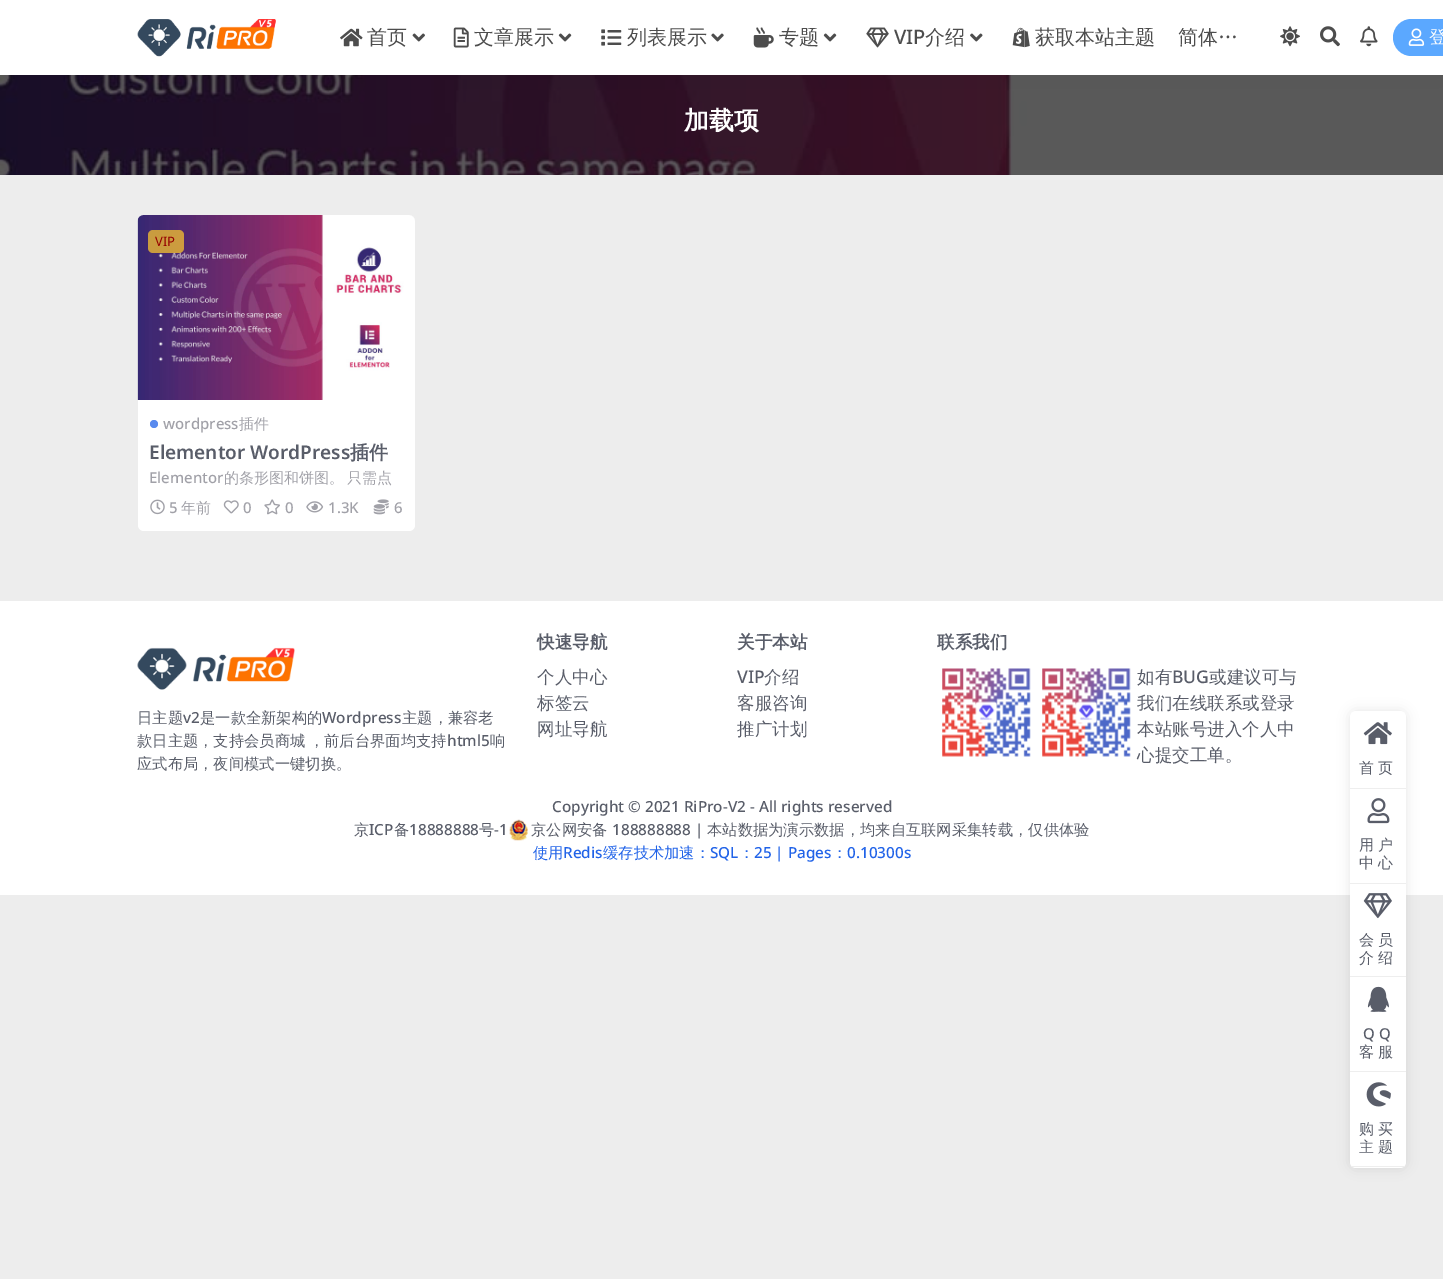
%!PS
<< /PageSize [1443 1279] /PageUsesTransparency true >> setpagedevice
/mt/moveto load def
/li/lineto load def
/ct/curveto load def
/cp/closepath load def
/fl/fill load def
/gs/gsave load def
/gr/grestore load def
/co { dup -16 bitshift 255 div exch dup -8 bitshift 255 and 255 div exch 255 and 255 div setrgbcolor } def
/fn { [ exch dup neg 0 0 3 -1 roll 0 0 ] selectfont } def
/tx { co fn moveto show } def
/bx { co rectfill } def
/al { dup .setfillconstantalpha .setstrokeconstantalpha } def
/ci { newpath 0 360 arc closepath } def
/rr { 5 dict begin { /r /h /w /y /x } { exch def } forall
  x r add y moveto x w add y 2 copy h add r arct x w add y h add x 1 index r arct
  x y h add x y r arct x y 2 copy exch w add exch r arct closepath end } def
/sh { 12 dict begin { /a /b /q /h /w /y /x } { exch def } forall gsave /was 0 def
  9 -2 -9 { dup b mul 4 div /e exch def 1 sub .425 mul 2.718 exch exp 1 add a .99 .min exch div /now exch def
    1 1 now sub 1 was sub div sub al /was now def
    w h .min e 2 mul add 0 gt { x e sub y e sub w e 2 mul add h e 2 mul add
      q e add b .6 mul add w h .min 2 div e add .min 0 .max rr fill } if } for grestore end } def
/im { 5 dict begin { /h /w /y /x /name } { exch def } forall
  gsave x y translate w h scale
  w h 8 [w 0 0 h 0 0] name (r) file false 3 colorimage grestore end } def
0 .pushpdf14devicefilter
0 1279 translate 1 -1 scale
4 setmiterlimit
0 0 1443 1279 16#EDEDED bx
(media/16.raw) 0 75 1443 100 im
16#000000 co
0 0 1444 75 0 19 .07 sh
0 0 1443 75 16#FFFFFF bx
(media/1.raw) 137 19 139 38 im
(media/2.raw) 340 28 23 19 im
(media/3.raw) 412 33 13 9 im
(media/4.raw) 453 27 16 21 im
(media/5.raw) 558 33 14 9 im
(media/6.raw) 601 29 21 17 im
(media/7.raw) 711 33 13 9 im
(media/8.raw) 753 27 21 21 im
(media/5.raw) 823 33 14 9 im
(media/9.raw) 866 27 23 21 im
(media/10.raw) 970 33 13 9 im
(media/11.raw) 1012 27 18 21 im
(media/12.raw) 1280 26 20 21 im
(media/13.raw) 1320 26 20 21 im
(media/14.raw) 1360 26 18 21 im
16#5BA8FF co
1393 19 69 37 18.5 rr fl
(media/15.raw) 1408 28 17 18 im
16#FFFFFF co
138 215 277 316 6 rr fl
(media/17.raw) 137 215 278 185 im
0.75 al
16#F7C32E co
148 230 36 23 5 rr fl
1 al
16#598AEE co
154 424 4 ci fl
(media/18.raw) 150 499 15 16 im
(media/19.raw) 223 500 16 14 im
(media/20.raw) 264 499 16 16 im
(media/21.raw) 306 501 18 12 im
(media/22.raw) 373 499 16 16 im
0 601 1443 294 16#FFFFFF bx
(media/23.raw) 137 647 158 43 im
(media/24.raw) 942 668 89 89 im
(media/24.raw) 1042 668 89 89 im
(media/25.raw) 509 819 19 22 im
gs
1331 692 mt 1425 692 li 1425 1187 li 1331 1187 li cp 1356 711 mt 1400 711 li 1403.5 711 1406 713.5 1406 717 ct 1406 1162 li 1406 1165.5 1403.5 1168 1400 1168 ct 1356 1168 li 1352.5 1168 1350 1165.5 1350 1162 ct 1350 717 li 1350 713.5 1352.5 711 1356 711 ct cp eoclip newpath
16#000000 co
1350 711 56 457 6 6 .1 sh
gr
1356 711 mt 1400 711 li 1403.5 711 1406 713.5 1406 717 ct 1406 789 li 1350 789 li 1350 717 li 1350 713.5 1352.5 711 1356 711 ct cp fl
1350 788 56 1 16#EEEEEE bx
(media/26.raw) 1363 722 29 23 im
1350 883 56 1 16#EEEEEE bx
(media/27.raw) 1367 798 23 26 im
1350 895 56 178 16#FFFFFF bx
1350 976 56 1 16#EEEEEE bx
(media/28.raw) 1363 893 29 26 im
1350 1071 56 1 16#EEEEEE bx
(media/29.raw) 1367 986 22 26 im
16#FFFFFF co
1350 1073 mt 1406 1073 li 1406 1162 li 1406 1165.5 1403.5 1168 1400 1168 ct 1356 1168 li 1352.5 1168 1350 1165.5 1350 1162 ct cp fl
gs
1350 711 56 457 6 rr clip newpath
1350 1166 56 1 16#EEEEEE bx
gr
(media/30.raw) 1366 1082 25 25 im
(首页) 367 44 /WenQuanYiZenHei-Medium 20 16#4D4D4D tx
(文章展示) 474 44 /WenQuanYiZenHei-Medium 20 16#4D4D4D tx
(列表展示) 627 44 /WenQuanYiZenHei-Medium 20 16#4D4D4D tx
(专题) 779 44 /WenQuanYiZenHei-Medium 20 16#4D4D4D tx
(VIP) 894 44 /NotoSans-Medium 20 16#4D4D4D tx
(介绍) 925 44 /WenQuanYiZenHei-Medium 20 16#4D4D4D tx
(获取本站主题) 1035 44 /WenQuanYiZenHei-Medium 20 16#4D4D4D tx
(简体…) 1178 44 /WenQuanYiZenHei-Medium 20 16#4D4D4D tx
(登) 1429 43 /WenQuanYiZenHei-Medium 17.5 16#FFFFFF tx
(加载项) 684 129 /WenQuanYiZenHei-Bold 25 16#FFFFFF tx
(VIP) 155 246 /NotoSans-Regular 13 16#950000 tx
(wordpress) 163 429 /NotoSans-Medium 15 16#A1A1A8 tx
(插件) 239 429 /WenQuanYiZenHei-Medium 15 16#A1A1A8 tx
(Elementor WordPress) 149 459 /NotoSans-SemiBold 19 16#595D69 tx
(插件) 350 459 /WenQuanYiZenHei-Bold 19 16#595D69 tx
(Elementor) 149 483 /NotoSans-Medium 15 16#A1A1A8 tx
/WenQuanYiZenHei-Medium 15 fn
224 483 mt -1 0 32 (的条形图和饼图。 只需点) widthshow
(5) 169 513 /NotoSans-Medium 15 16#A1A1A8 tx
(年前) 181 513 /WenQuanYiZenHei-Medium 15 16#A1A1A8 tx
(0) 243 513 /NotoSans-Medium 15 16#A1A1A8 tx
(0) 285 513 /NotoSans-Medium 15 16#A1A1A8 tx
(1.3K) 328 513 /NotoSans-Medium 15 16#A1A1A8 tx
(6) 394 513 /NotoSans-Medium 15 16#A1A1A8 tx
(日主题) 137 723 /WenQuanYiZenHei-Medium 15.3 16#595D69 tx
(v2) 183 723 /NotoSans-Medium 15.3 16#595D69 tx
(是一款全新架构的) 200 723 /WenQuanYiZenHei-Medium 15.3 16#595D69 tx
(Wordpress) 322 723 /NotoSans-Medium 15.3 16#595D69 tx
(主题，兼容老) 402 723 /WenQuanYiZenHei-Medium 15.3 16#595D69 tx
137 746 mt -1 0 32 (款日主题，支持会员商城 ，前后台界面均支持) widthshow
(html5) 447 746 /NotoSans-Medium 15.3 16#595D69 tx
(响) 490 746 /WenQuanYiZenHei-Medium 15.3 16#595D69 tx
(应式布局，夜间模式一键切换。) 137 769 /WenQuanYiZenHei-Medium 15.3 16#595D69 tx
(快速导航) 537 648 /WenQuanYiZenHei-Bold 17.5 16#595D69 tx
(个人中心) 537 683 /WenQuanYiZenHei-Medium 17.5 16#595D69 tx
(标签云) 537 709 /WenQuanYiZenHei-Medium 17.5 16#595D69 tx
(网址导航) 537 735 /WenQuanYiZenHei-Medium 17.5 16#595D69 tx
(关于本站) 737 648 /WenQuanYiZenHei-Bold 17.5 16#595D69 tx
(VIP) 737 683 /NotoSans-Medium 17.5 16#595D69 tx
(介绍) 764 683 /WenQuanYiZenHei-Medium 17.5 16#595D69 tx
(客服咨询) 737 709 /WenQuanYiZenHei-Medium 17.5 16#595D69 tx
(推广计划) 737 735 /WenQuanYiZenHei-Medium 17.5 16#595D69 tx
(联系我们) 937 648 /WenQuanYiZenHei-Bold 17.5 16#595D69 tx
(如有) 1137 683 /WenQuanYiZenHei-Medium 17.5 16#595D69 tx
(BUG) 1172 683 /NotoSans-Medium 17.5 16#595D69 tx
(或建议可与) 1209 683 /WenQuanYiZenHei-Medium 17.5 16#595D69 tx
(我们在线联系或登录) 1137 709 /WenQuanYiZenHei-Medium 17.5 16#595D69 tx
(本站账号进入个人中) 1137 735 /WenQuanYiZenHei-Medium 17.5 16#595D69 tx
(心提交工单。) 1137 761 /WenQuanYiZenHei-Medium 17.5 16#595D69 tx
(Copyright © 2021 RiPro-V2 - All rights reserved) 552 812 /NotoSans-Medium 15.3 16#595D69 tx
(京) 354 835 /WenQuanYiZenHei-Medium 15.3 16#595D69 tx
(ICP) 369 835 /NotoSans-Medium 15.3 16#595D69 tx
(备) 394 835 /WenQuanYiZenHei-Medium 15.3 16#595D69 tx
(18888888) 409 835 /NotoSans-Medium 15.3 16#595D69 tx
(号) 479 835 /WenQuanYiZenHei-Medium 15.3 16#595D69 tx
(-1) 494 835 /NotoSans-Medium 15.3 16#595D69 tx
(京公网安备) 531 835 /WenQuanYiZenHei-Medium 15.3 16#595D69 tx
(188888888 |) 612 835 /NotoSans-Medium 15.3 16#595D69 tx
(本站数据为演示数据，均来自互联网采集转载，仅供体验) 707 835 /WenQuanYiZenHei-Medium 15.3 16#595D69 tx
(使用) 533 858 /WenQuanYiZenHei-Medium 15.3 16#2163E8 tx
(Redis) 563 858 /NotoSans-Medium 15.3 16#2163E8 tx
(缓存技术加速：) 603 858 /WenQuanYiZenHei-Medium 15.3 16#2163E8 tx
(SQL) 710 858 /NotoSans-Medium 15.3 16#2163E8 tx
(：) 739 858 /WenQuanYiZenHei-Medium 15.3 16#2163E8 tx
(25 | Pages) 754 858 /NotoSans-Medium 15.3 16#2163E8 tx
(：) 832 858 /WenQuanYiZenHei-Medium 15.3 16#2163E8 tx
(0.10300s) 847 858 /NotoSans-Medium 15.3 16#2163E8 tx
/WenQuanYiZenHei-Medium 15 fn
16#595D69 co
1359 773 mt 4 0 (首页) ashow
1359 850 mt 4 0 (用户) ashow
1359 868 mt 4 0 (中心) ashow
1359 945 mt 4 0 (会员) ashow
1359 963 mt 4 0 (介绍) ashow
/NotoSans-Medium 15 fn
1363 1039 mt 4 0 (QQ) ashow
/WenQuanYiZenHei-Medium 15 fn
1359 1057 mt 4 0 (客服) ashow
1359 1134 mt 4 0 (购买) ashow
1359 1152 mt 4 0 (主题) ashow
.poppdf14devicefilter showpage
